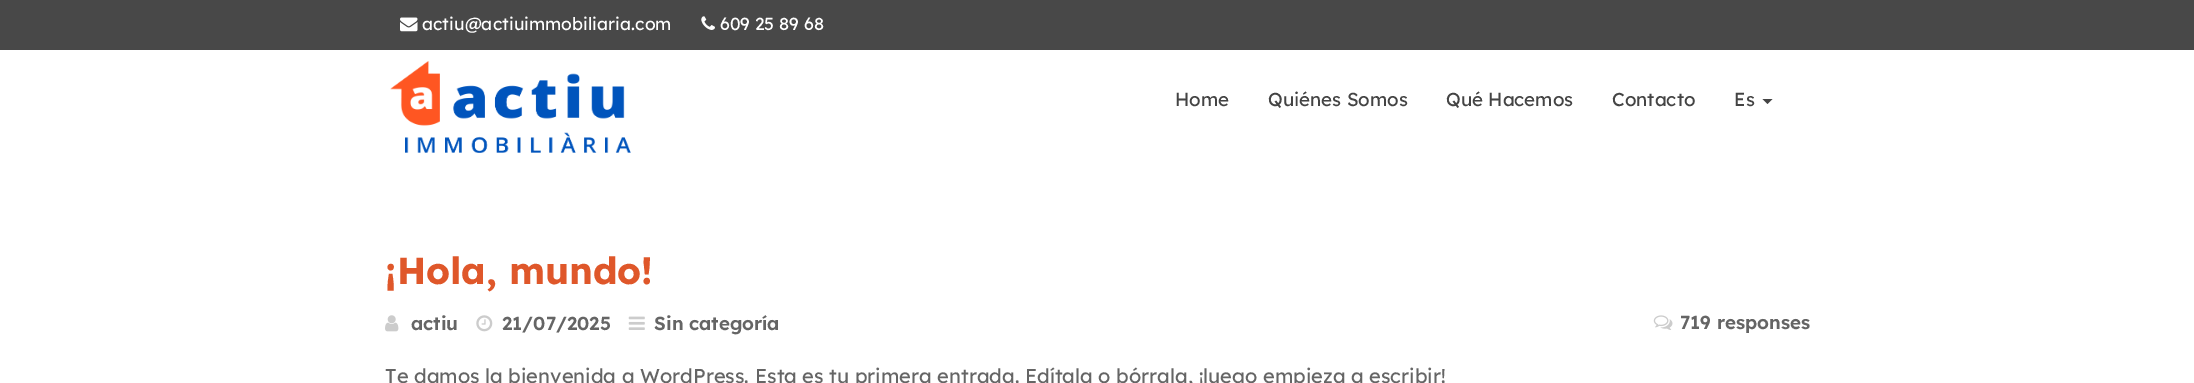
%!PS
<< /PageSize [2194 383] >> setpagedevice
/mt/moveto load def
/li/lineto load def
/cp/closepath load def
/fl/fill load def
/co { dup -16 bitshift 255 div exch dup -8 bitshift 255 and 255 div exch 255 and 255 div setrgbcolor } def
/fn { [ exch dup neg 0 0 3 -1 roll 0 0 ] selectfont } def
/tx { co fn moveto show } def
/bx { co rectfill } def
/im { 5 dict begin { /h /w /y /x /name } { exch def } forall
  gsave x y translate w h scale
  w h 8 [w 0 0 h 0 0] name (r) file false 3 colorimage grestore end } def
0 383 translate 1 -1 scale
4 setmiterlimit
0 0 2194 383 16#FFFFFF bx
0 0 2194 50 16#484848 bx
(media/1.raw) 400 17 18 15 im
(media/2.raw) 701 16 14 14 im
(media/3.raw) 390 61 241 92 im
16#444444 co
1762.5 99 mt 1772.5 99 li 1767.5 104 li cp fl
(media/4.raw) 385 315 14 17 im
(media/5.raw) 476 315 17 17 im
(media/6.raw) 628 316 17 14 im
(media/7.raw) 1653 315 20 15 im
(actiu@actiuimmobiliaria.com) 422 30 /Lexend-Regular 17.5 16#FFFFFF tx
(609 25 89 68) 720 30 /Lexend-Regular 17.5 16#FFFFFF tx
(Home) 1175 106 /Lexend-Regular 18.75 16#444444 tx
(Quiénes Somos) 1268 106 /Lexend-Regular 18.75 16#444444 tx
(Qué Hacemos) 1446 106 /Lexend-Regular 18.75 16#444444 tx
(Contacto) 1612 106 /Lexend-Regular 18.75 16#444444 tx
(Es) 1734 106 /Lexend-Regular 18.75 16#444444 tx
(¡Hola, mundo!) 385 284 /Lexend-Bold 37.5 16#DF572A tx
(actiu) 411 330 /Lexend-SemiBold 18.75 16#656565 tx
(21/07/2025) 502 330 /Lexend-SemiBold 18.75 16#656565 tx
(Sin categoría) 654 330 /Lexend-SemiBold 18.75 16#656565 tx
(719 responses) 1680 329 /Lexend-SemiBold 18.75 16#656565 tx
(Te damos la bienvenida a WordPress. Esta es tu primera entrada. Edítala o bórrala, ¡luego empieza a escribir!) 385 383 /Lexend-Regular 20 16#656565 tx
showpage
